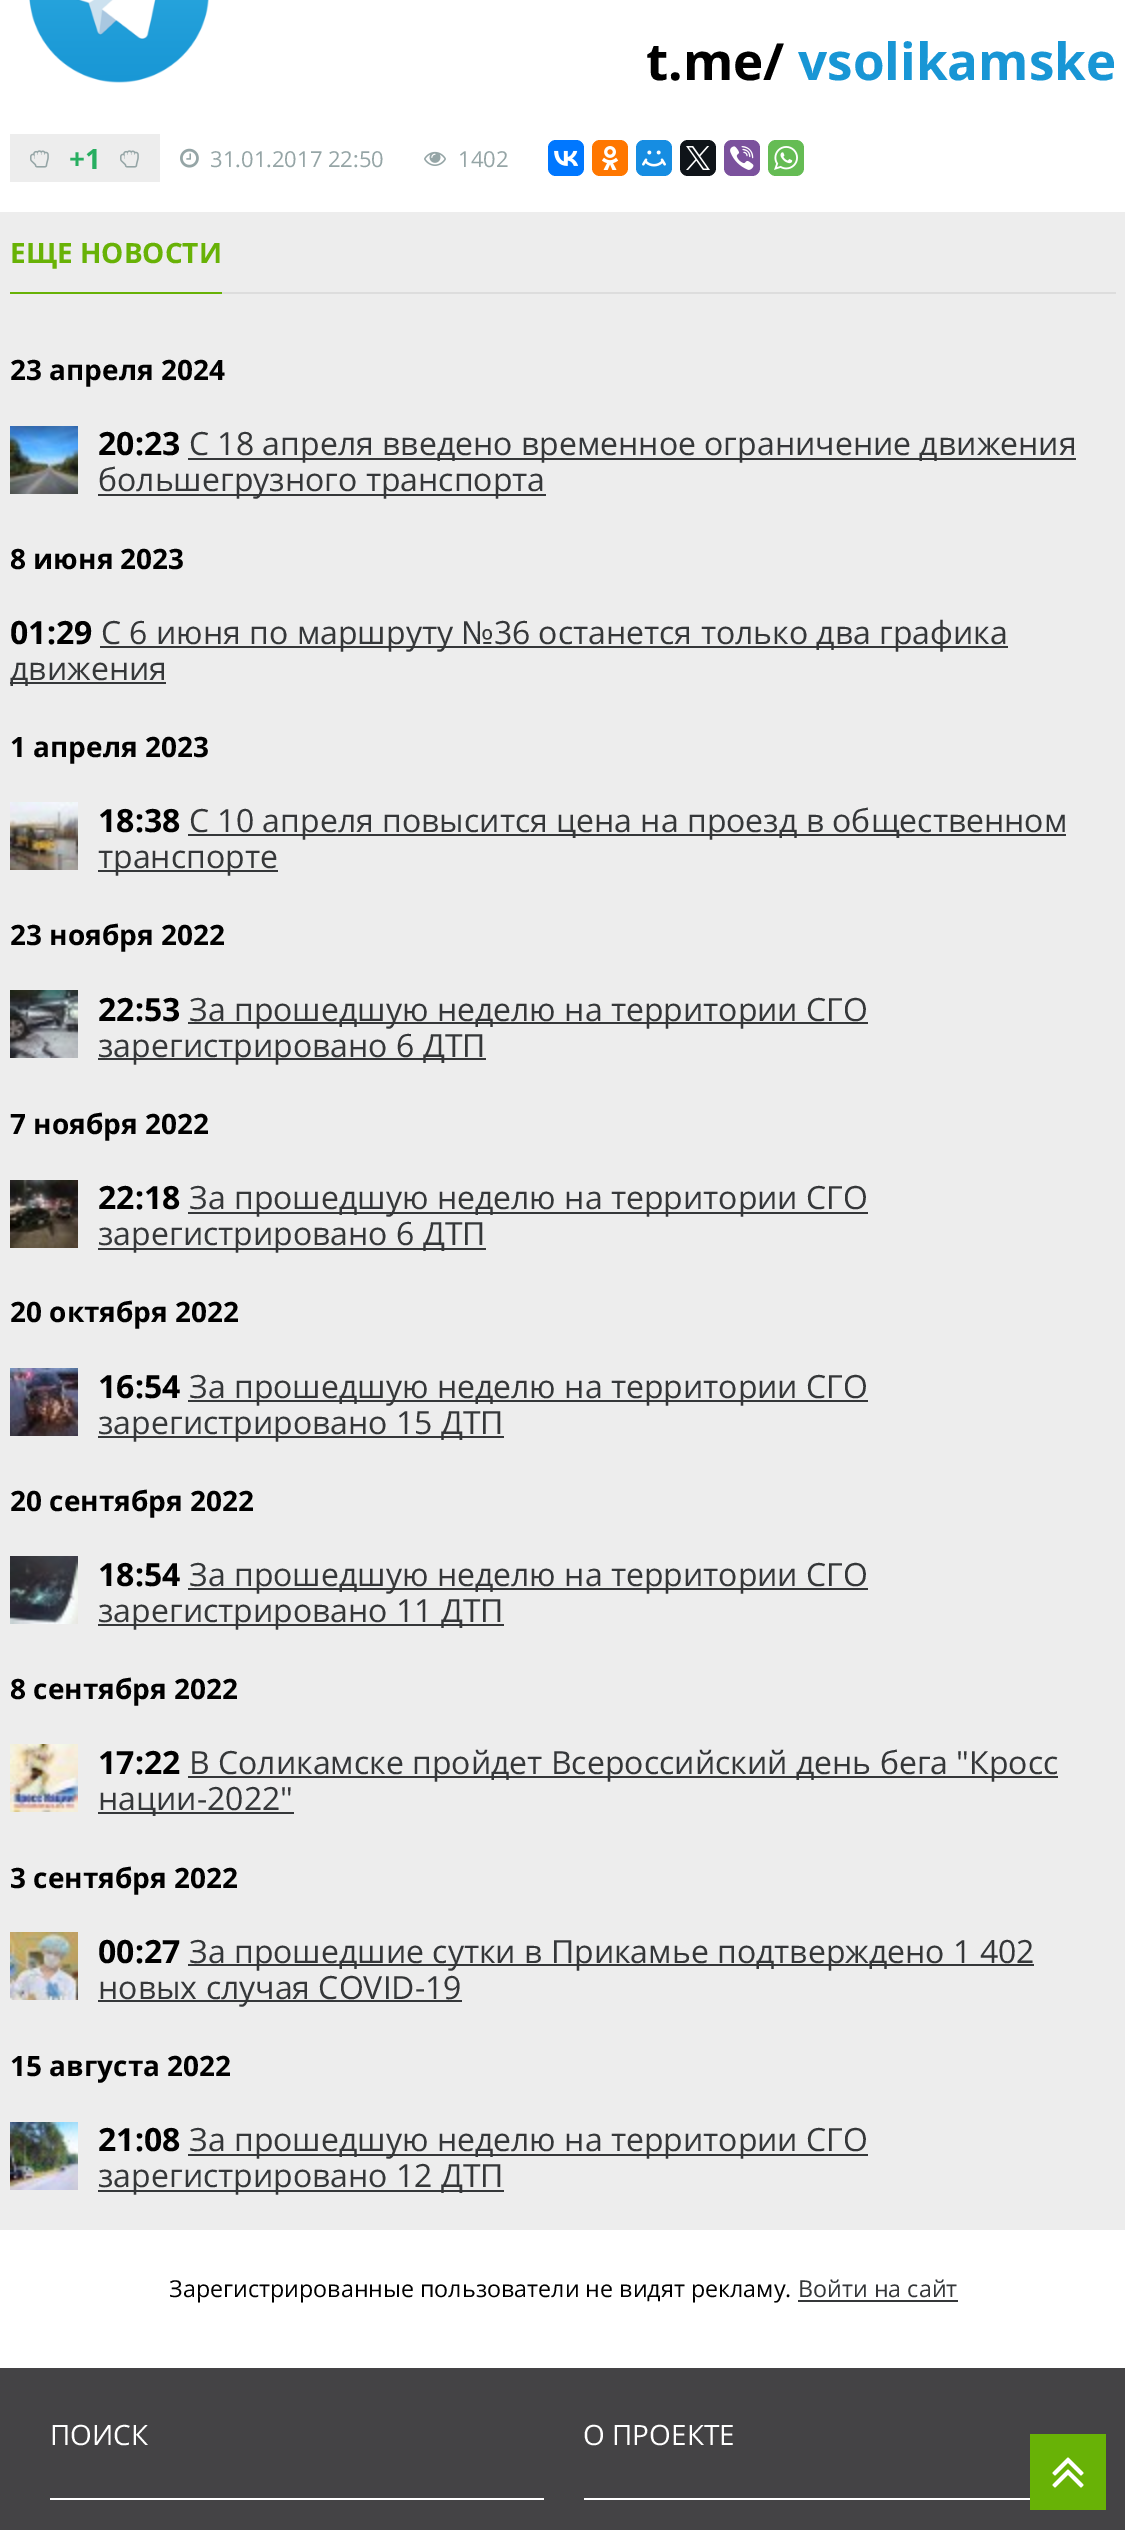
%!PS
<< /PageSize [1125 2530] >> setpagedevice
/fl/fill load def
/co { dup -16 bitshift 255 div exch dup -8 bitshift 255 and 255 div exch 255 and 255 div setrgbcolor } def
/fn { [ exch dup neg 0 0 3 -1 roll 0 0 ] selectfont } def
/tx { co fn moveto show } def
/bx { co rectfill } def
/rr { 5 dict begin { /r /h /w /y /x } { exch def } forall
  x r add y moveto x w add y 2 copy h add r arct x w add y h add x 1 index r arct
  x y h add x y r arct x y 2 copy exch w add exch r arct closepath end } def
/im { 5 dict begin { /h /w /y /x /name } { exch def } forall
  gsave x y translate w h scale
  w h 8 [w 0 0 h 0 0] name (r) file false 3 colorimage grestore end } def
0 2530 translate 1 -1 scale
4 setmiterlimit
0 0 1125 2530 16#FFFFFF bx
(media/1.raw) 29 0 180 83 im
10 134 150 48 16#EDEDED bx
(media/2.raw) 30 150 19 18 im
(media/2.raw) 120 150 19 18 im
(media/3.raw) 180 148 19 20 im
(media/4.raw) 424 151 22 15 im
16#0077FF co
548 140 36 36 8 rr fl
(media/5.raw) 554 150 24 16 im
16#FF7700 co
592 140 36 36 8 rr fl
(media/6.raw) 602 146 17 24 im
16#168DE2 co
636 140 36 36 8 rr fl
(media/7.raw) 642 150 24 17 im
16#0F1419 co
680 140 36 36 8 rr fl
(media/8.raw) 686 146 24 24 im
16#7B519D co
724 140 36 36 8 rr fl
(media/9.raw) 730 146 24 24 im
16#65BC54 co
768 140 36 36 8 rr fl
(media/10.raw) 774 146 24 24 im
0 212 1125 2018 16#EDEDED bx
222 292 894 2 16#DDDDDD bx
10 292 212 2 16#68B206 bx
(media/11.raw) 10 426 68 68 im
188 458 888 2 16#353739 bx
98 494 448 2 16#353739 bx
100 646 908 2 16#353739 bx
10 682 156 2 16#353739 bx
(media/12.raw) 10 802 68 68 im
188 834 878 2 16#353739 bx
98 870 180 2 16#353739 bx
(media/13.raw) 10 990 68 68 im
188 1022 680 2 16#353739 bx
98 1058 388 2 16#353739 bx
(media/14.raw) 10 1180 68 68 im
188 1212 680 2 16#353739 bx
98 1248 388 2 16#353739 bx
(media/15.raw) 10 1368 68 68 im
188 1400 680 2 16#353739 bx
98 1436 406 2 16#353739 bx
(media/16.raw) 10 1556 68 68 im
188 1588 680 2 16#353739 bx
98 1624 406 2 16#353739 bx
(media/17.raw) 10 1744 68 68 im
188 1776 870 2 16#353739 bx
98 1812 196 2 16#353739 bx
(media/18.raw) 10 1932 68 68 im
188 1964 846 2 16#353739 bx
98 2000 364 2 16#353739 bx
(media/19.raw) 10 2122 68 68 im
188 2154 680 2 16#353739 bx
98 2190 406 2 16#353739 bx
798 2300 160 2 16#353739 bx
0 2368 1125 162 16#444345 bx
50 2498 494 2 16#FFFFFF bx
584 2498 446 2 16#FFFFFF bx
1030 2434 76 76 16#68B206 bx
(media/20.raw) 1052 2457 32 31 im
(t.me/) 646 80 /OpenSans-Bold 51.25 16#000000 tx
(vsolikamske) 798 80 /OpenSans-Bold 51.25 16#1896D5 tx
(+1) 69 169 /OpenSans-Bold 28 16#27AE60 tx
(31.01.2017 22:50) 210 167 /OpenSans-Regular 22 16#95A5A6 tx
(1402) 458 167 /OpenSans-Regular 22 16#95A5A6 tx
(ЕЩЕ НОВОСТИ) 10 263 /OpenSans-Bold 28 16#68B206 tx
(23 апреля 2024) 10 380 /OpenSans-Bold 28 16#000000 tx
(20:23) 98 455 /OpenSans-Bold 32 16#000000 tx
(C 18 апреля введено временное ограничение движения) 189 455 /OpenSans-Regular 32 16#353739 tx
(большегрузного транспорта) 98 491 /OpenSans-Regular 32 16#353739 tx
(8 июня 2023) 10 569 /OpenSans-Bold 28 16#000000 tx
(01:29) 10 644 /OpenSans-Bold 32 16#000000 tx
(С 6 июня по маршруту №36 останется только два графика) 101 644 /OpenSans-Regular 32 16#353739 tx
(движения) 10 680 /OpenSans-Regular 32 16#353739 tx
(1 апреля 2023) 10 757 /OpenSans-Bold 28 16#000000 tx
(18:38) 98 832 /OpenSans-Bold 32 16#000000 tx
(С 10 апреля повысится цена на проезд в общественном) 189 832 /OpenSans-Regular 32 16#353739 tx
(транспорте) 98 868 /OpenSans-Regular 32 16#353739 tx
(23 ноября 2022) 10 945 /OpenSans-Bold 28 16#000000 tx
(22:53) 98 1021 /OpenSans-Bold 32 16#000000 tx
(За прошедшую неделю на территории СГО) 189 1021 /OpenSans-Regular 32 16#353739 tx
(зарегистрировано 6 ДТП) 98 1057 /OpenSans-Regular 32 16#353739 tx
(7 ноября 2022) 10 1134 /OpenSans-Bold 28 16#000000 tx
(22:18) 98 1209 /OpenSans-Bold 32 16#000000 tx
(За прошедшую неделю на территории СГО) 189 1209 /OpenSans-Regular 32 16#353739 tx
(зарегистрировано 6 ДТП) 98 1245 /OpenSans-Regular 32 16#353739 tx
(20 октября 2022) 10 1322 /OpenSans-Bold 28 16#000000 tx
(16:54) 98 1398 /OpenSans-Bold 32 16#000000 tx
(За прошедшую неделю на территории СГО) 189 1398 /OpenSans-Regular 32 16#353739 tx
(зарегистрировано 15 ДТП) 98 1434 /OpenSans-Regular 32 16#353739 tx
(20 сентября 2022) 10 1511 /OpenSans-Bold 28 16#000000 tx
(18:54) 98 1586 /OpenSans-Bold 32 16#000000 tx
(За прошедшую неделю на территории СГО) 189 1586 /OpenSans-Regular 32 16#353739 tx
(зарегистрировано 11 ДТП) 98 1622 /OpenSans-Regular 32 16#353739 tx
(8 сентября 2022) 10 1699 /OpenSans-Bold 28 16#000000 tx
(17:22) 98 1774 /OpenSans-Bold 32 16#000000 tx
(В Соликамске пройдет Всероссийский день бега "Кросс) 189 1774 /OpenSans-Regular 32 16#353739 tx
(нации-2022") 98 1810 /OpenSans-Regular 32 16#353739 tx
(3 сентября 2022) 10 1888 /OpenSans-Bold 28 16#000000 tx
(00:27) 98 1963 /OpenSans-Bold 32 16#000000 tx
(За прошедшие сутки в Прикамье подтверждено 1 402) 189 1963 /OpenSans-Regular 32 16#353739 tx
(новых случая COVID-19) 98 1999 /OpenSans-Regular 32 16#353739 tx
(15 августа 2022) 10 2076 /OpenSans-Bold 28 16#000000 tx
(21:08) 98 2151 /OpenSans-Bold 32 16#000000 tx
(За прошедшую неделю на территории СГО) 189 2151 /OpenSans-Regular 32 16#353739 tx
(зарегистрировано 12 ДТП) 98 2187 /OpenSans-Regular 32 16#353739 tx
(Зарегистрированные пользователи не видят рекламу.) 169 2297 /OpenSans-Regular 23.3 16#000000 tx
(Войти на сайт) 798 2297 /OpenSans-Regular 23.3 16#353739 tx
(ПОИСК) 50 2445 /OpenSans-Regular 28 16#FFFFFF tx
(О ПРОЕКТЕ) 583 2445 /OpenSans-Regular 28 16#FFFFFF tx
showpage
